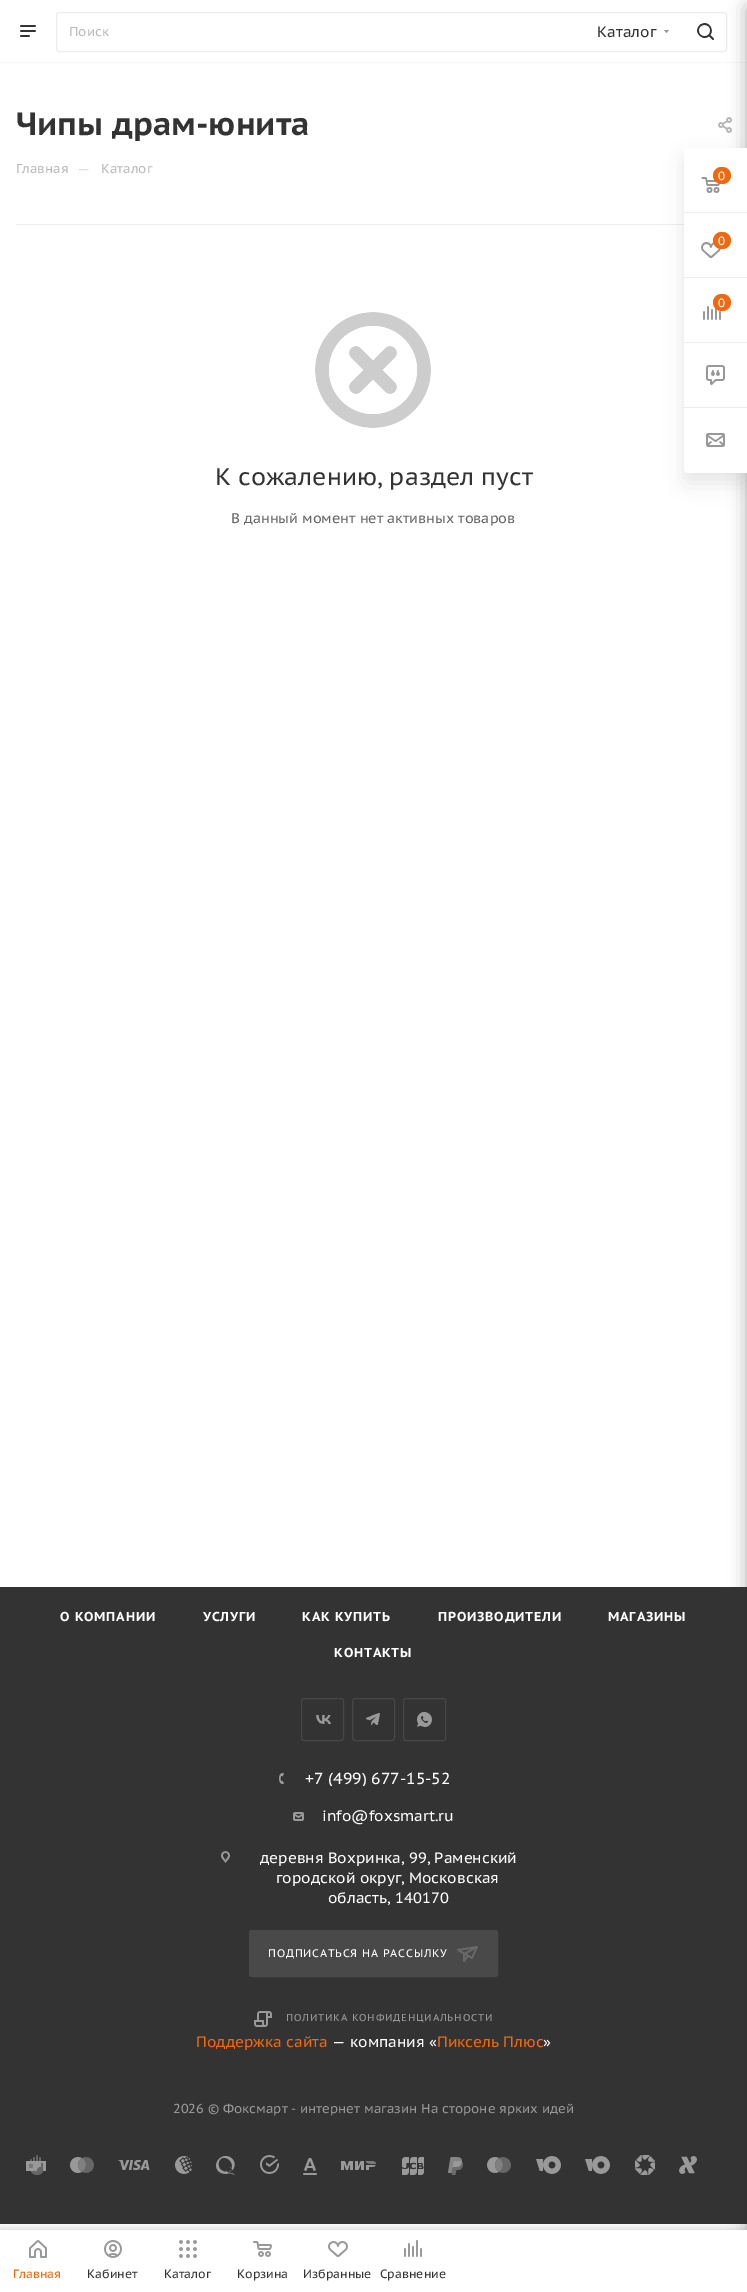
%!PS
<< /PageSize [747 2292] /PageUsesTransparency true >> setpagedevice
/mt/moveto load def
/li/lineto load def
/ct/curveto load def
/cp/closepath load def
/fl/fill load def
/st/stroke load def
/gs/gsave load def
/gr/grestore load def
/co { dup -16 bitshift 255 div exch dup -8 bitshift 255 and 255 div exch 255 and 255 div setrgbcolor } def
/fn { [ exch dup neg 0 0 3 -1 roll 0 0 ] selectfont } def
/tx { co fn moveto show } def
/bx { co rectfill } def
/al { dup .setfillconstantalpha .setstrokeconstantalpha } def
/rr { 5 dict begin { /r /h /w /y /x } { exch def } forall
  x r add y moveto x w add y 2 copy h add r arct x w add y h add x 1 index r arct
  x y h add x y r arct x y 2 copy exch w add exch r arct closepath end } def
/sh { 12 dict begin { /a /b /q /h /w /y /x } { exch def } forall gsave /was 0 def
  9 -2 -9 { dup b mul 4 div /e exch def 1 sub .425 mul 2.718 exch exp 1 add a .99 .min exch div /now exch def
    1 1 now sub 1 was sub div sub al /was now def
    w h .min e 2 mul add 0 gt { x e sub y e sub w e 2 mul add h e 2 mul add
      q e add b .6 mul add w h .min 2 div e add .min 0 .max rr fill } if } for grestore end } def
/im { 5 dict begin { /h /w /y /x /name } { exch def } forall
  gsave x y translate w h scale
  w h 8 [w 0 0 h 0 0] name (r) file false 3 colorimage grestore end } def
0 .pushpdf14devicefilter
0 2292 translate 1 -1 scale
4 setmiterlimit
0 0 747 2292 16#FFFFFF bx
0 62 747 1 16#F8F8F8 bx
(media/1.raw) 20 25 16 12 im
16#ECECEC co
56.5 12.5 670 39 2.5 rr st
16#999999 co
664 30 mt 669 30 li 666.5 33 li cp eofill
(media/2.raw) 697 23 17 17 im
(media/3.raw) 718 117 14 16 im
16 224 668 1 16#EEEEEE bx
(media/4.raw) 315 312 116 116 im
0 1587 747 637 16#333333 bx
16#2C2C2C co
747 6 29 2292 2 9 .4 sh
16#000000 co
684 158 63 325 4 10 .1 sh
16#FFFFFF co
688 148 mt 747 148 li 747 473 li 688 473 li 686 473 684 471 684 469 ct 684 152 li 684 150 686 148 688 148 ct cp fl
684 212 63 1 16#ECECEC bx
(media/5.raw) 701 177 19 16 im
16#EE6910 co
713 167 18 17 8.5 rr fl
684 277 63 1 16#ECECEC bx
(media/6.raw) 701 242 20 16 im
16#EE6910 co
713 232 18 17 8.5 rr fl
684 342 63 1 16#ECECEC bx
(media/7.raw) 703 306 18 14 im
16#EE6910 co
713 294 18 17 8.5 rr fl
684 407 63 1 16#ECECEC bx
(media/8.raw) 706 365 19 20 im
(media/9.raw) 706 433 19 14 im
(media/10.raw) 316 1715 15 9 im
16#474747 co
301.5 1698.5 42 42 2.5 rr st
(media/11.raw) 366 1713 14 12 im
352.5 1698.5 42 42 2.5 rr st
(media/12.raw) 417 1712 15 15 im
403.5 1698.5 42 42 2.5 rr st
(media/13.raw) 279 1773 5 11 im
(media/14.raw) 293 1812 11 9 im
(media/15.raw) 221 1851 9 12 im
16#494949 co
249.5 1930.5 248 46 2.5 rr gs fl gr
st
(media/16.raw) 457 1946 21 16 im
(media/17.raw) 254 2011 18 16 im
(media/18.raw) 26 2155 20 20 im
(media/19.raw) 70 2157 24 16 im
(media/20.raw) 118 2160 32 10 im
(media/21.raw) 175 2156 17 18 im
(media/22.raw) 216 2156 19 19 im
(media/23.raw) 260 2155 19 19 im
(media/24.raw) 303 2158 14 17 im
(media/25.raw) 341 2161 35 9 im
(media/26.raw) 402 2157 22 18 im
(media/27.raw) 448 2157 15 18 im
(media/19.raw) 487 2157 24 16 im
(media/28.raw) 536 2156 25 18 im
(media/28.raw) 585 2156 25 18 im
(media/29.raw) 635 2155 20 20 im
(media/30.raw) 679 2156 18 18 im
16#000000 co
0 2228 747 62 0 4 .15 sh
0 2230 747 62 16#FFFFFF bx
(media/31.raw) 29 2240 18 18 im
(media/32.raw) 104 2240 18 18 im
(media/33.raw) 179 2240 18 18 im
(media/34.raw) 253 2241 19 16 im
(media/35.raw) 328 2241 20 16 im
(media/36.raw) 404 2240 18 17 im
(Поиск) 69 36 /PTSansCaption-Regular 13 16#B8B8B8 tx
(Каталог) 597 37 /PTSansCaption-Regular 15 16#333333 tx
gs
16 105 669 36 rectclip
(Чипы драм-юнита) 16 135 /PTSansCaption-Bold 32 16#333333 tx
gr
(Главная) 16 173 /PTSansCaption-Regular 13 16#B8B8B8 tx
(—) 77 174 /PTSansCaption-Regular 15 16#DDDDDD tx
(Каталог) 101 173 /PTSansCaption-Regular 13 16#B8B8B8 tx
(К сожалению, раздел пуст) 215 485 /PTSansCaption-Regular 24 16#333333 tx
(В данный момент нет активных товаров) 231 523 /PTSansCaption-Regular 14 16#666666 tx
(0) 718 180 /PTSansCaption-Regular 12 16#FFFFFF tx
(0) 718 245 /PTSansCaption-Regular 12 16#FFFFFF tx
(0) 718 307 /PTSansCaption-Regular 12 16#FFFFFF tx
/PTSansCaption-Bold 13 fn
60 1621 mt .8 0 (О КОМПАНИИ) ashow
203 1621 mt .8 0 (УСЛУГИ) ashow
302 1621 mt .8 0 (КАК КУПИТЬ) ashow
438 1621 mt .8 0 (ПРОИЗВОДИТЕЛИ) ashow
608 1621 mt .8 0 (МАГАЗИНЫ) ashow
334 1657 mt .8 0 (КОНТАКТЫ) ashow
gs
276 1770 188 16 rectclip
(+7 \(499\) 677-15-52) 305 1784 /PTSansCaption-Regular 16 16#FFFFFF tx
gr
(info@foxsmart.ru) 322 1821 /PTSansCaption-Regular 15 16#FFFFFF tx
(деревня Вохринка, 99, Раменский) 260 1863 /PTSansCaption-Regular 15 16#FFFFFF tx
(городской округ, Московская) 276 1883 /PTSansCaption-Regular 15 16#FFFFFF tx
(область, 140170) 328 1903 /PTSansCaption-Regular 15 16#FFFFFF tx
/PTSansCaption-Regular 11 fn
268 1957 mt .8 0 (ПОДПИСАТЬСЯ НА РАССЫЛКУ) ashow
/PTSansCaption-Regular 10 fn
16#999999 co
286 2021 mt .8 0 (ПОЛИТИКА КОНФИДЕНЦИАЛЬНОСТИ) ashow
(Поддержка сайта) 196 2047 /PTSansCaption-Regular 15 16#EE6910 tx
(— компания «) 332 2047 /PTSansCaption-Regular 15 16#FFFFFF tx
(Пиксель Плюс) 437 2047 /PTSansCaption-Regular 15 16#EE6910 tx
(») 543 2047 /PTSansCaption-Regular 15 16#FFFFFF tx
(2026 © Фоксмарт - интернет магазин На стороне ярких идей) 173 2113 /PTSansCaption-Regular 13 16#999999 tx
(Главная) 13 2278 /PTSansCaption-Regular 12 16#EE6910 tx
(Кабинет) 87 2278 /PTSansCaption-Regular 12 16#333333 tx
(Каталог) 164 2278 /PTSansCaption-Regular 12 16#333333 tx
(Корзина) 237 2278 /PTSansCaption-Regular 12 16#333333 tx
(Избранные) 303 2278 /PTSansCaption-Regular 12 16#333333 tx
(Сравнение) 380 2278 /PTSansCaption-Regular 12 16#333333 tx
.poppdf14devicefilter showpage
